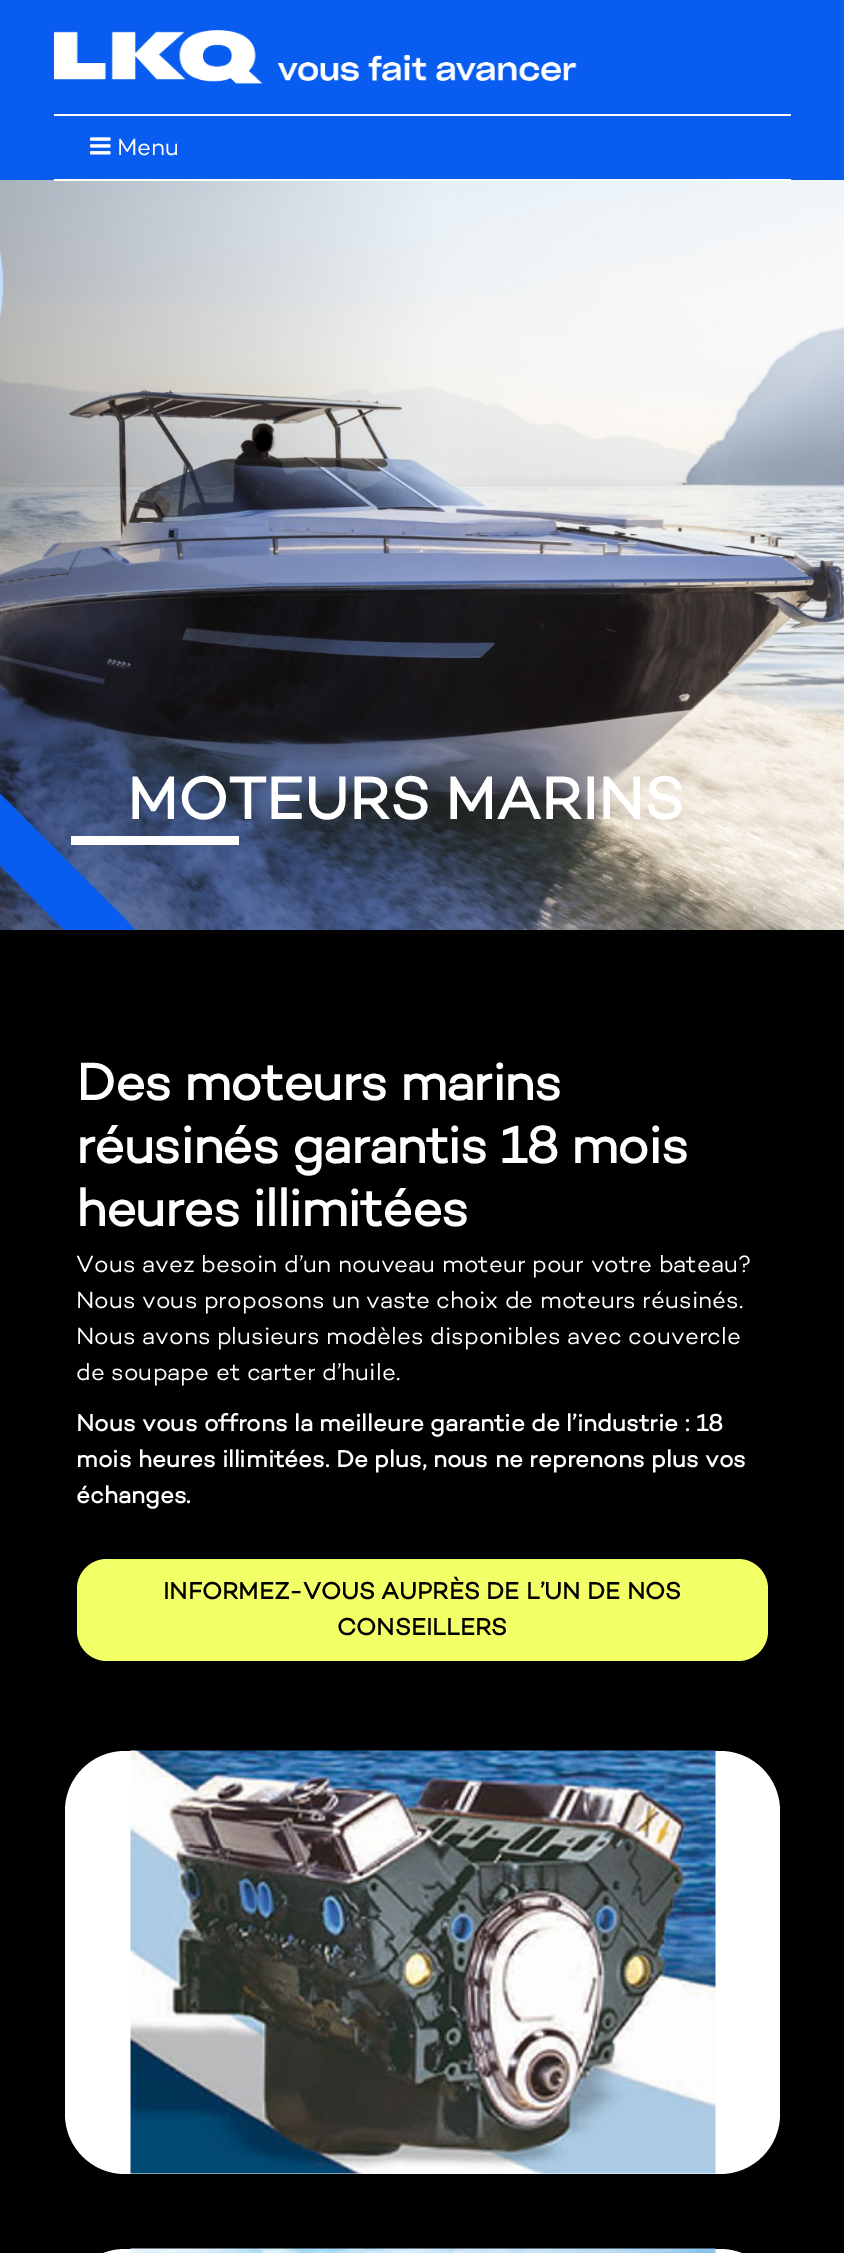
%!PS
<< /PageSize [844 2253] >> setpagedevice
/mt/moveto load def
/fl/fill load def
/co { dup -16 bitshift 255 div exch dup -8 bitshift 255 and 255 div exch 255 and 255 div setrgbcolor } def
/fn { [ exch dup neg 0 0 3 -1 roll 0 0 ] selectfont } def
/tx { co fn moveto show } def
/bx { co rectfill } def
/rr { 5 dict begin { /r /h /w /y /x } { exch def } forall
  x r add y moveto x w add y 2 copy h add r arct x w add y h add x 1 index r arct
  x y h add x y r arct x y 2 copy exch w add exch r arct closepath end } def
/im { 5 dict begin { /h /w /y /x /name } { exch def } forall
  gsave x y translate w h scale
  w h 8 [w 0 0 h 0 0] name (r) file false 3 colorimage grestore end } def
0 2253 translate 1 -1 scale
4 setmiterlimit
0 0 844 2253 16#000000 bx
0 0 844 180 16#085CF0 bx
(media/1.raw) 54 30 523 54 im
54 114 737 2 16#FFFFFF bx
(media/3.raw) 0 180 844 750 im
54 179 737 2 16#FFFFFF bx
(media/2.raw) 90 137 21 18 im
71 836 168 9 16#FFFFFF bx
16#F3FF66 co
77 1559 691 102 30 rr fl
16#FFFFFF co
65 1751 715 423 60 rr fl
(media/4.raw) 130 1750 586 424 im
65 2249 715 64 60 rr fl
(media/5.raw) 130 2248 586 5 im
(Menu) 117 155 /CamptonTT-Regular 24 16#FFFFFF tx
(MOTEURS MARINS) 127 819 /CamptonTT-Bold 60 16#FFFFFF tx
/CamptonTT-Bold 52.5 fn
76 1100 mt -1.05 0 (Des moteurs marins) ashow
76 1163 mt -1.05 0 (réusinés garantis 18 mois) ashow
76 1226 mt -1.05 0 (heures illimitées) ashow
(Vous avez besoin d’un nouveau moteur pour votre bateau?) 76 1272 /CamptonTT-Regular 24 16#FFFFFF tx
(Nous vous proposons un vaste choix de moteurs réusinés.) 76 1308 /CamptonTT-Regular 24 16#FFFFFF tx
(Nous avons plusieurs modèles disponibles avec couvercle) 76 1344 /CamptonTT-Regular 24 16#FFFFFF tx
(de soupape et carter d’huile.) 76 1380 /CamptonTT-Regular 24 16#FFFFFF tx
(Nous vous offrons la meilleure garantie de l’industrie : 18) 76 1431 /CamptonTT-Bold 24 16#FFFFFF tx
(mois heures illimitées. De plus, nous ne reprenons plus vos) 76 1467 /CamptonTT-Bold 24 16#FFFFFF tx
(échanges.) 76 1503 /CamptonTT-Bold 24 16#FFFFFF tx
(INFORMEZ-VOUS AUPRÈS DE L’UN DE NOS) 163 1599 /CamptonTT-Bold 24 16#000000 tx
(CONSEILLERS) 337 1635 /CamptonTT-Bold 24 16#000000 tx
showpage
